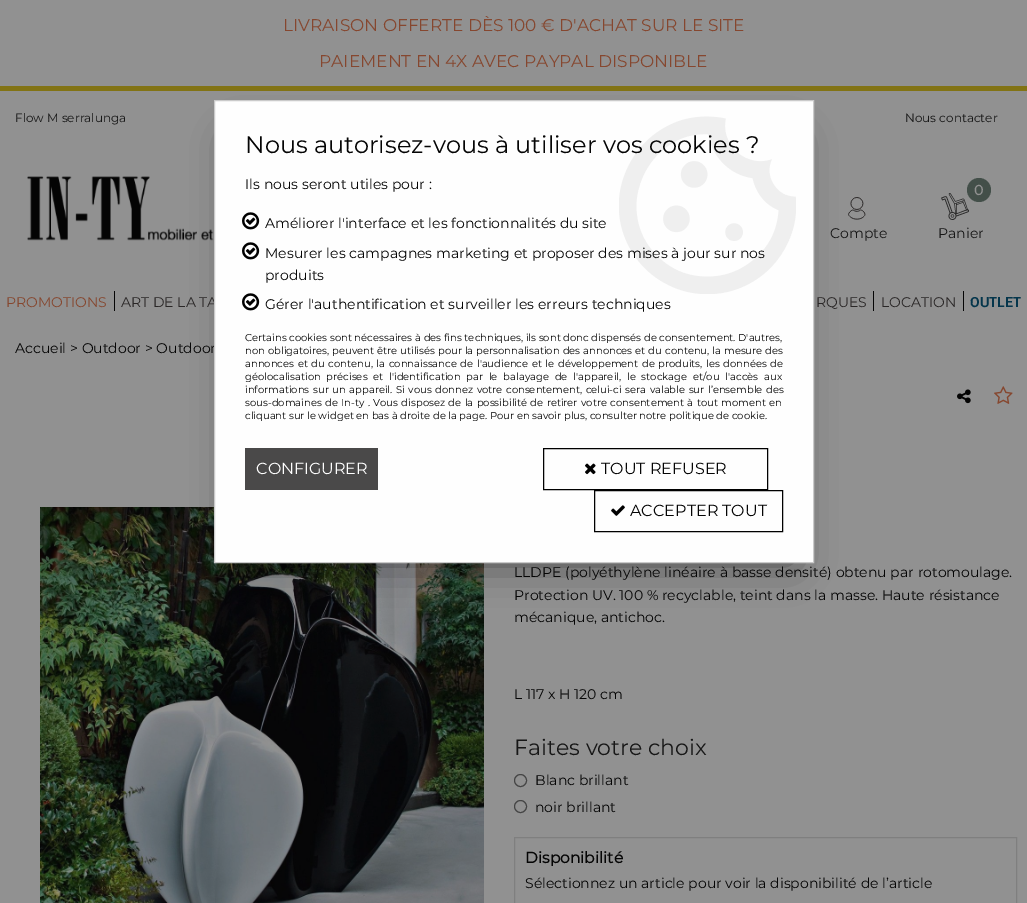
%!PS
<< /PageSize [1027 903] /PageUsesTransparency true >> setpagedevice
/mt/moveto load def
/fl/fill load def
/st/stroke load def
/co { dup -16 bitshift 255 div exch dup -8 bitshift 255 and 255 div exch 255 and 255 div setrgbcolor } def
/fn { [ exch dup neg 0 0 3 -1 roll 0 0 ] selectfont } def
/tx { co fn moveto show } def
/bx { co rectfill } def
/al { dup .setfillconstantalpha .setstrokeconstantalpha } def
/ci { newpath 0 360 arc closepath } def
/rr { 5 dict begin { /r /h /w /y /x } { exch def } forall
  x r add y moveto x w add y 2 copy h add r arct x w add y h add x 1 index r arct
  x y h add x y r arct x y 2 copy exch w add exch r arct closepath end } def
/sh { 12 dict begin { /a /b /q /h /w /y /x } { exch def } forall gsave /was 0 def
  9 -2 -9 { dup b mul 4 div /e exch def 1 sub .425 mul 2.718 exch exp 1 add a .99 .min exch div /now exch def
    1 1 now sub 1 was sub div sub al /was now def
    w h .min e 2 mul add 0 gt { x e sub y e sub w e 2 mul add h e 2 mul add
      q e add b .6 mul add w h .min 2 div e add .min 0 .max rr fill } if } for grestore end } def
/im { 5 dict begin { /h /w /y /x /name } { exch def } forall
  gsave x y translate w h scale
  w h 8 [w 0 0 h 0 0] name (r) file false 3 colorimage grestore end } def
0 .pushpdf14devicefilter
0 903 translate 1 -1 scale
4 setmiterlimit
0 0 1027 903 16#919191 bx
0 86 1027 5 16#827314 bx
(media/1.raw) 27 176 187 68 im
(media/2.raw) 848 197 18 23 im
(media/3.raw) 941 193 28 27 im
16#434F49 co
979 190 12 ci fl
114 291 1 20 16#050505 bx
873 291 1 20 16#050505 bx
963 291 1 20 16#050505 bx
(media/4.raw) 40 507 444 396 im
(media/5.raw) 957 389 14 15 im
(media/6.raw) 994 386 19 18 im
16#454545 co
520.5 780.5 6 ci st
520.5 806.5 6 ci st
16#7F7F7F co
514.5 837.5 502 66 rectstroke
16#000000 co
234 140 560 423 0 20 .5 sh
(LIVRAISON OFFERTE DÈS 100 € D'ACHAT SUR LE SITE) 283 31 /Montserrat-Regular 17 16#86472F tx
(PAIEMENT EN 4X AVEC PAYPAL DISPONIBLE) 319 67 /Montserrat-Regular 17 16#86472F tx
(Flow M serralunga) 15 122 /Montserrat-Regular 12 16#171717 tx
(Nous contacter) 905 122 /Montserrat-Regular 12 16#171717 tx
(Compte) 830 238 /Montserrat-Regular 14 16#171717 tx
(0) 974 195 /Montserrat-Bold 14 16#919191 tx
(Panier) 938 238 /Montserrat-Regular 14 16#171717 tx
(PROMOTIONS) 6 307 /Montserrat-Regular 14 16#86472F tx
(ART DE LA TA) 121 307 /Montserrat-Regular 14 16#2A2727 tx
(RQUES) 816 307 /Montserrat-Regular 14 16#2A2727 tx
(LOCATION) 881 307 /Montserrat-Regular 14 16#2A2727 tx
(OUTLET) 970 307 /roboto-Bold 14 16#05364C tx
(Accueil > Outdoor > Outdoor) 15 353 /Montserrat-Regular 14 16#050505 tx
(LLDPE \(polyéthylène linéaire à basse densité\) obtenu par rotomoulage.) 514 577 /Montserrat-Regular 14 16#050505 tx
(Protection UV. 100 % recyclable, teint dans la masse. Haute résistance) 514 600 /Montserrat-Regular 14 16#050505 tx
(mécanique, antichoc.) 514 622 /Montserrat-Regular 14 16#050505 tx
(L 117 x H 120 cm) 514 699 /Montserrat-Regular 14 16#050505 tx
(Faites votre choix) 514 755 /Montserrat-Regular 22 16#171717 tx
(Blanc brillant) 535 785 /Montserrat-Regular 14 16#050505 tx
(noir brillant) 535 812 /Montserrat-Regular 14 16#050505 tx
(Disponibilité) 525 863 /Montserrat-Bold 15.5 16#050505 tx
(Sélectionnez un article pour voir la disponibilité de l’article) 525 888 /Montserrat-Regular 14 16#050505 tx
215 101 598 461 16#FEFEFE bx
(media/7.raw) 619 116 177 178 im
16#CACACA co
214.5 100.5 599 462 rectstroke
(Nous autorisez-vous à utiliser vos cookies ?) 245 153 /Montserrat-Regular 24 16#050505 tx
(Ils nous seront utiles pour :) 245 189 /Montserrat-Regular 14 16#050505 tx
(media/8.raw) 242 212 18 18 im
(Améliorer l'interface et les fonctionnalités du site) 265 228 /Montserrat-Regular 14 16#050505 tx
(media/8.raw) 242 242 18 18 im
(Mesurer les campagnes marketing et proposer des mises à jour sur nos) 265 258 /Montserrat-Regular 14 16#050505 tx
(produits) 265 280 /Montserrat-Regular 14 16#050505 tx
(media/8.raw) 242 293 18 18 im
(Gérer l'authentification et surveiller les erreurs techniques) 265 309 /Montserrat-Regular 14 16#050505 tx
/Montserrat-Regular 10 fn
245 341 mt .1 0 32 (Certains cookies sont nécessaires à des fins techniques, ils sont donc dispensés de consentement. D'autres,) widthshow
245 354 mt .4 0 32 (non obligatoires, peuvent être utilisés pour la personnalisation des annonces et du contenu, la mesure des) widthshow
245 367 mt 1 0 32 (annonces et du contenu, la connaissance de l'audience et le développement de produits, les données de) widthshow
245 380 mt 3.25 0 32 (géolocalisation précises et l'identification par le balayage de l'appareil, le stockage et/ou l'accès aux) widthshow
245 393 mt 1 0 32 (informations sur un appareil. Si vous donnez votre consentement, celui-ci sera valable sur l’ensemble des) widthshow
245 406 mt .8 0 32 (sous-domaines de In-ty . Vous disposez de la possibilité de retirer votre consentement à tout moment en) widthshow
(cliquant sur le widget en bas à droite de la page. Pour en savoir plus, consulter notre politique de cookie.) 245 419 /Montserrat-Regular 10 16#050505 tx
245 448 133 42 16#4A4949 bx
(CONFIGURER) 256 474 /Montserrat-Regular 16 16#FFFFFF tx
16#000000 co
543.5 448.5 224 41 rectstroke
(media/9.raw) 585 463 11 12 im
(TOUT REFUSER) 601 474 /Montserrat-Regular 16 16#050505 tx
16#000000 co
594.5 490.5 188 41 rectstroke
(media/10.raw) 611 505 14 11 im
(ACCEPTER TOUT) 630 516 /Montserrat-Regular 16 16#050505 tx
.poppdf14devicefilter showpage
